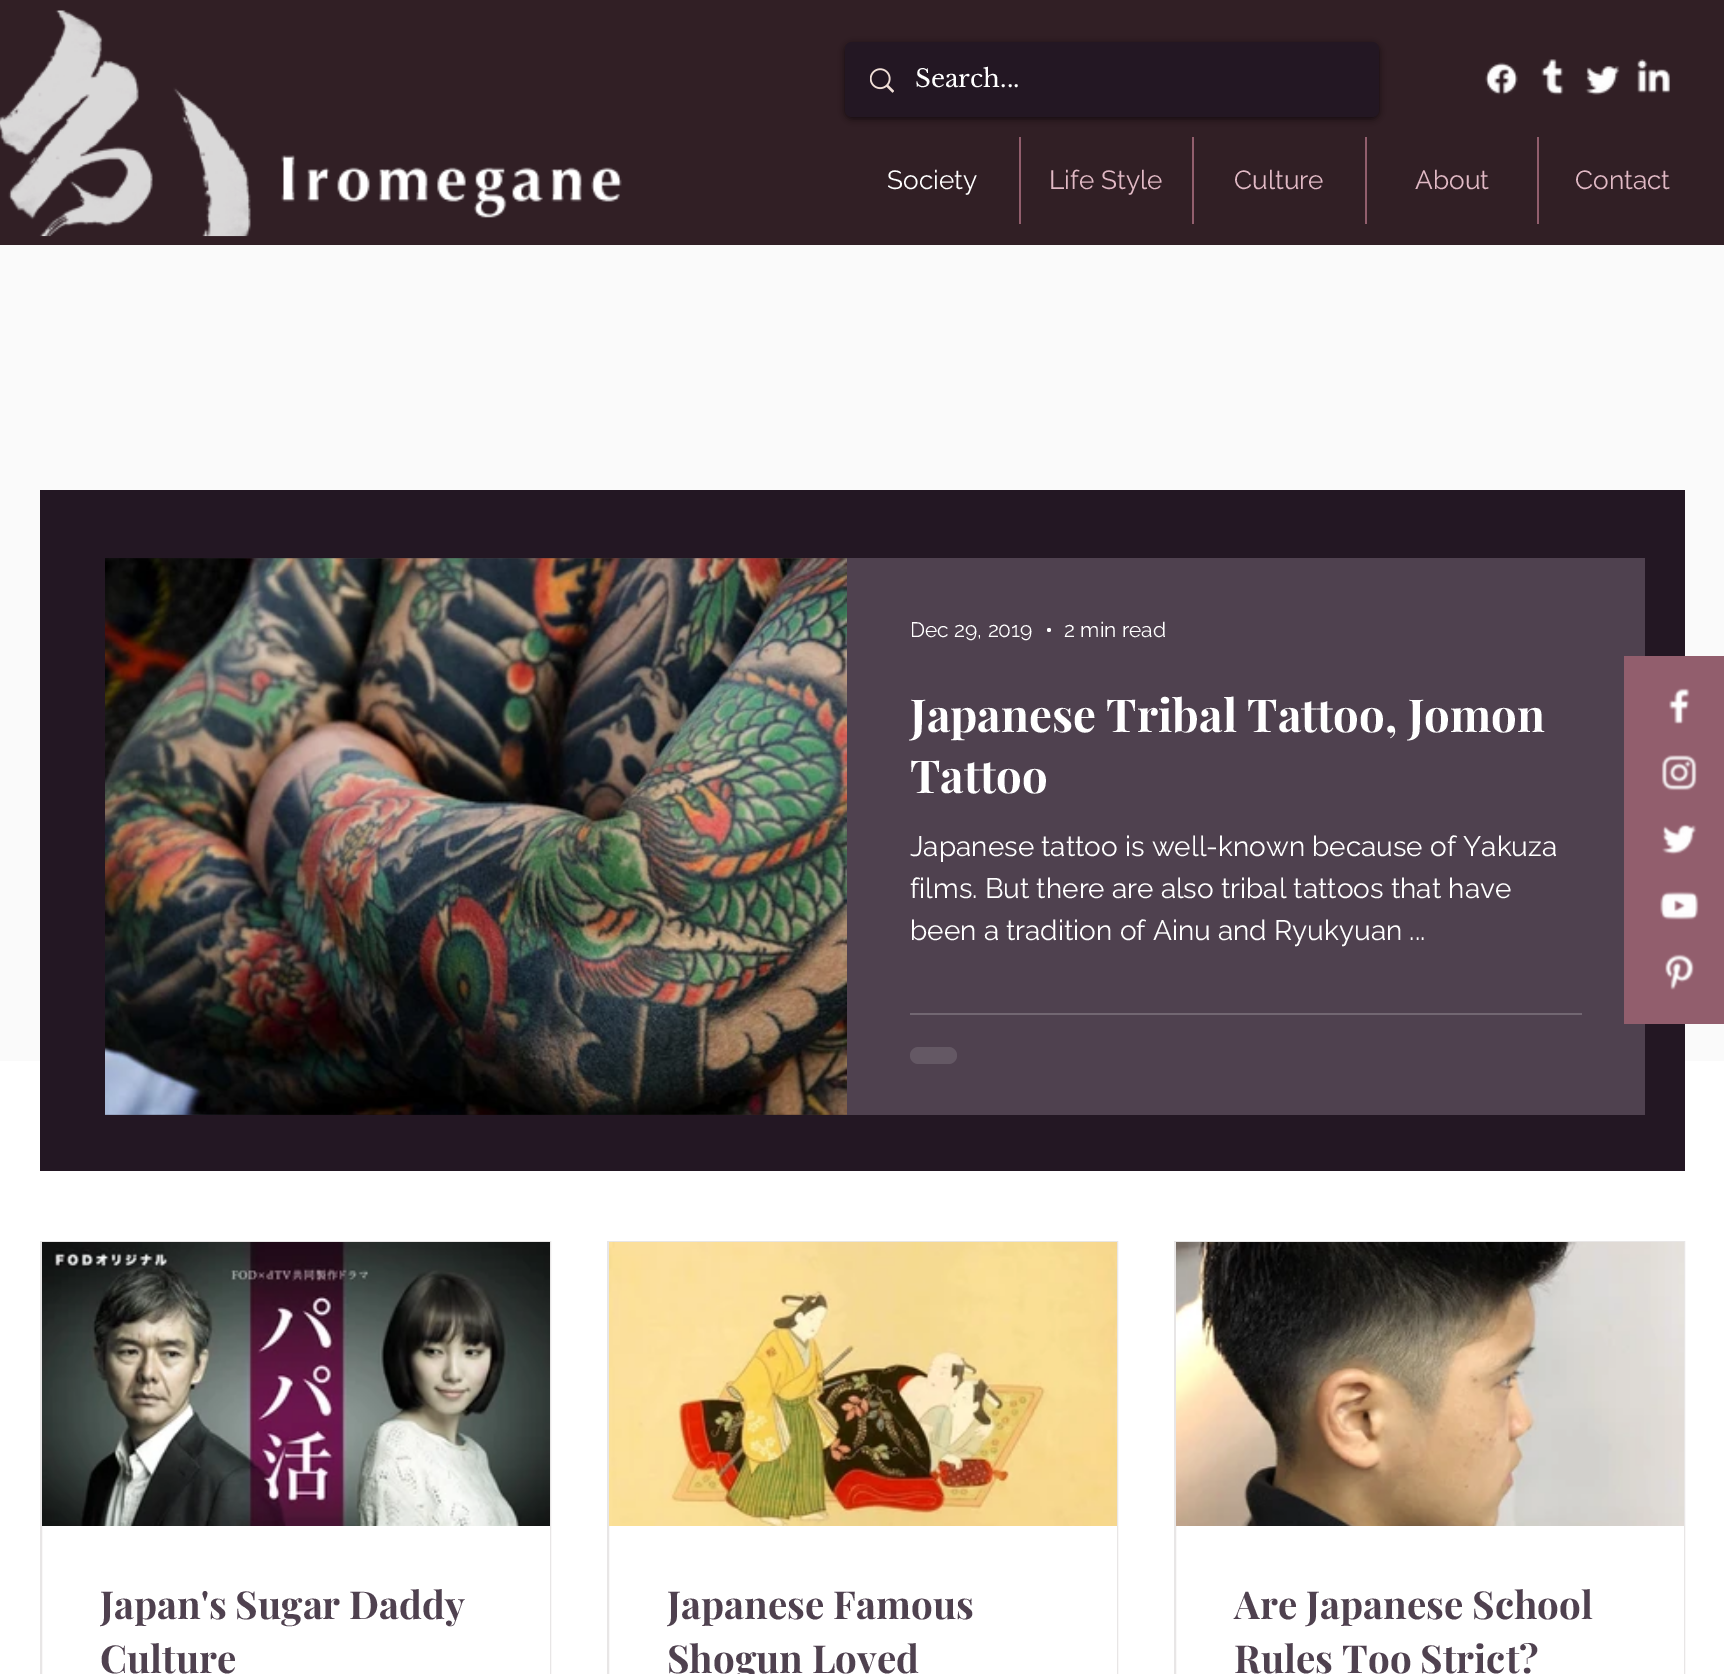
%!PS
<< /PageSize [1724 1674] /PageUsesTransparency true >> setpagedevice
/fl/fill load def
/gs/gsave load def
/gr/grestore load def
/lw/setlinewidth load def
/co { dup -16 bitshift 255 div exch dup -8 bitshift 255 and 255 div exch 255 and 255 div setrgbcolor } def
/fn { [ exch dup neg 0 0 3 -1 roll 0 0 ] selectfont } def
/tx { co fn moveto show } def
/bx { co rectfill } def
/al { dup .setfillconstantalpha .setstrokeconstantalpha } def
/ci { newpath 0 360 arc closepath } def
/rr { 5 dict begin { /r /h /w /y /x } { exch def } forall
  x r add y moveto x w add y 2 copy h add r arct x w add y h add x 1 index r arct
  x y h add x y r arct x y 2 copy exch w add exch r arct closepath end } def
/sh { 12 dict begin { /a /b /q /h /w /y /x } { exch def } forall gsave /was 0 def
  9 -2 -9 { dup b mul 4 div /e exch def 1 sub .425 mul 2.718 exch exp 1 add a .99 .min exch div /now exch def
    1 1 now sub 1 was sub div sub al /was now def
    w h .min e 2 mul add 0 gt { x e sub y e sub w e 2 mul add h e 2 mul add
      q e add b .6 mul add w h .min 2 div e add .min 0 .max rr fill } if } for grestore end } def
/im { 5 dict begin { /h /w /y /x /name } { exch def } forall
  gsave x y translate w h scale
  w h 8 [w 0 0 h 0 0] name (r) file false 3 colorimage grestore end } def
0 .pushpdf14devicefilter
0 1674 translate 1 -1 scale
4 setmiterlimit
0 0 1724 1674 16#FFFFFF bx
0 0 1724 245 16#311F25 bx
(media/1.raw) 0 10 622 227 im
16#000000 co
845 44 534 75 7 3.5 .6 sh
16#231723 co
845 42 534 75 7 rr fl
(media/2.raw) 870 68 24 25 im
(media/3.raw) 1485 62 33 33 im
(media/4.raw) 1541 59 23 36 im
(media/5.raw) 1585 65 35 30 im
(media/6.raw) 1637 59 33 34 im
1019 137 2 87 16#925E6D bx
1192 137 2 87 16#925E6D bx
1365 137 2 87 16#925E6D bx
1537 137 2 87 16#925E6D bx
0 245 1724 816 16#FAFAFA bx
40 490 1645 681 16#231723 bx
(media/7.raw) 105 558 742 557 im
(media/8.raw) 105 558 742 557 im
847 558 798 557 16#4F414F bx
16#FFFFFF co
1049 630 2 ci fl
910 1013 672 2 16#726772 bx
16#645864 co
910 1047 47 17 8.5 rr fl
16#E8E6E6 co
2 lw
41 1242 509 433 rectstroke
(media/9.raw) 42 1242 508 284 im
549 1526 1 148 16#FFFFFF bx
16#E8E6E6 co
608 1242 509 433 rectstroke
(media/10.raw) 609 1242 508 284 im
1116 1526 1 148 16#FFFFFF bx
16#E8E6E6 co
1175 1242 509 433 rectstroke
(media/11.raw) 1176 1242 508 284 im
1683 1526 1 148 16#FFFFFF bx
1624 656 100 368 16#925E6D bx
(media/12.raw) 1669 688 21 36 im
(media/13.raw) 1661 755 36 36 im
(media/14.raw) 1662 824 35 31 im
(media/15.raw) 1660 891 39 29 im
(media/16.raw) 1665 954 29 36 im
(Search...) 915 87 /LibreBaskerville-Regular 24.5 16#FFFFFF tx
(Society) 887 189 /Raleway-Regular 26.25 16#FFFFFF tx
(Life Style) 1049 189 /Raleway-Regular 26.25 16#E1B9C5 tx
(Culture) 1234 189 /Raleway-Regular 26.25 16#E1B9C5 tx
(About) 1415 189 /Raleway-Regular 26.25 16#E1B9C5 tx
(Contact) 1575 189 /Raleway-Regular 26.25 16#E1B9C5 tx
(Dec 29, 2019) 910 637 /Raleway-Regular 21 16#FFFFFF tx
(2 min read) 1064 637 /Raleway-Regular 21 16#FFFFFF tx
(Japanese Tribal Tattoo, Jomon) 910 732 /PlayfairDisplay-Bold 45.5 16#FFFFFF tx
(Tattoo) 910 793 /PlayfairDisplay-Bold 45.5 16#FFFFFF tx
(Japanese tattoo is well-known because of Yakuza) 910 856 /Raleway-Regular 28 16#FFFFFF tx
(films. But there are also tribal tattoos that have) 910 898 /Raleway-Regular 28 16#FFFFFF tx
(been a tradition of Ainu and Ryukyuan ...) 910 940 /Raleway-Regular 28 16#FFFFFF tx
gs
100 1577 392 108 rectclip
(Japan's Sugar Daddy) 100 1619 /PlayfairDisplay-Bold 38.5 16#4F414F tx
gr
(Culture) 100 1673 /PlayfairDisplay-Bold 38.5 16#4F414F tx
gs
667 1577 392 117 rectclip
(Japanese Famous) 667 1619 /PlayfairDisplay-Bold 38.5 16#4F414F tx
gr
(Shogun Loved) 667 1673 /PlayfairDisplay-Bold 38.5 16#4F414F tx
(Are Japanese School) 1234 1619 /PlayfairDisplay-Bold 38.5 16#4F414F tx
(Rules Too Strict?) 1234 1673 /PlayfairDisplay-Bold 38.5 16#4F414F tx
.poppdf14devicefilter showpage
